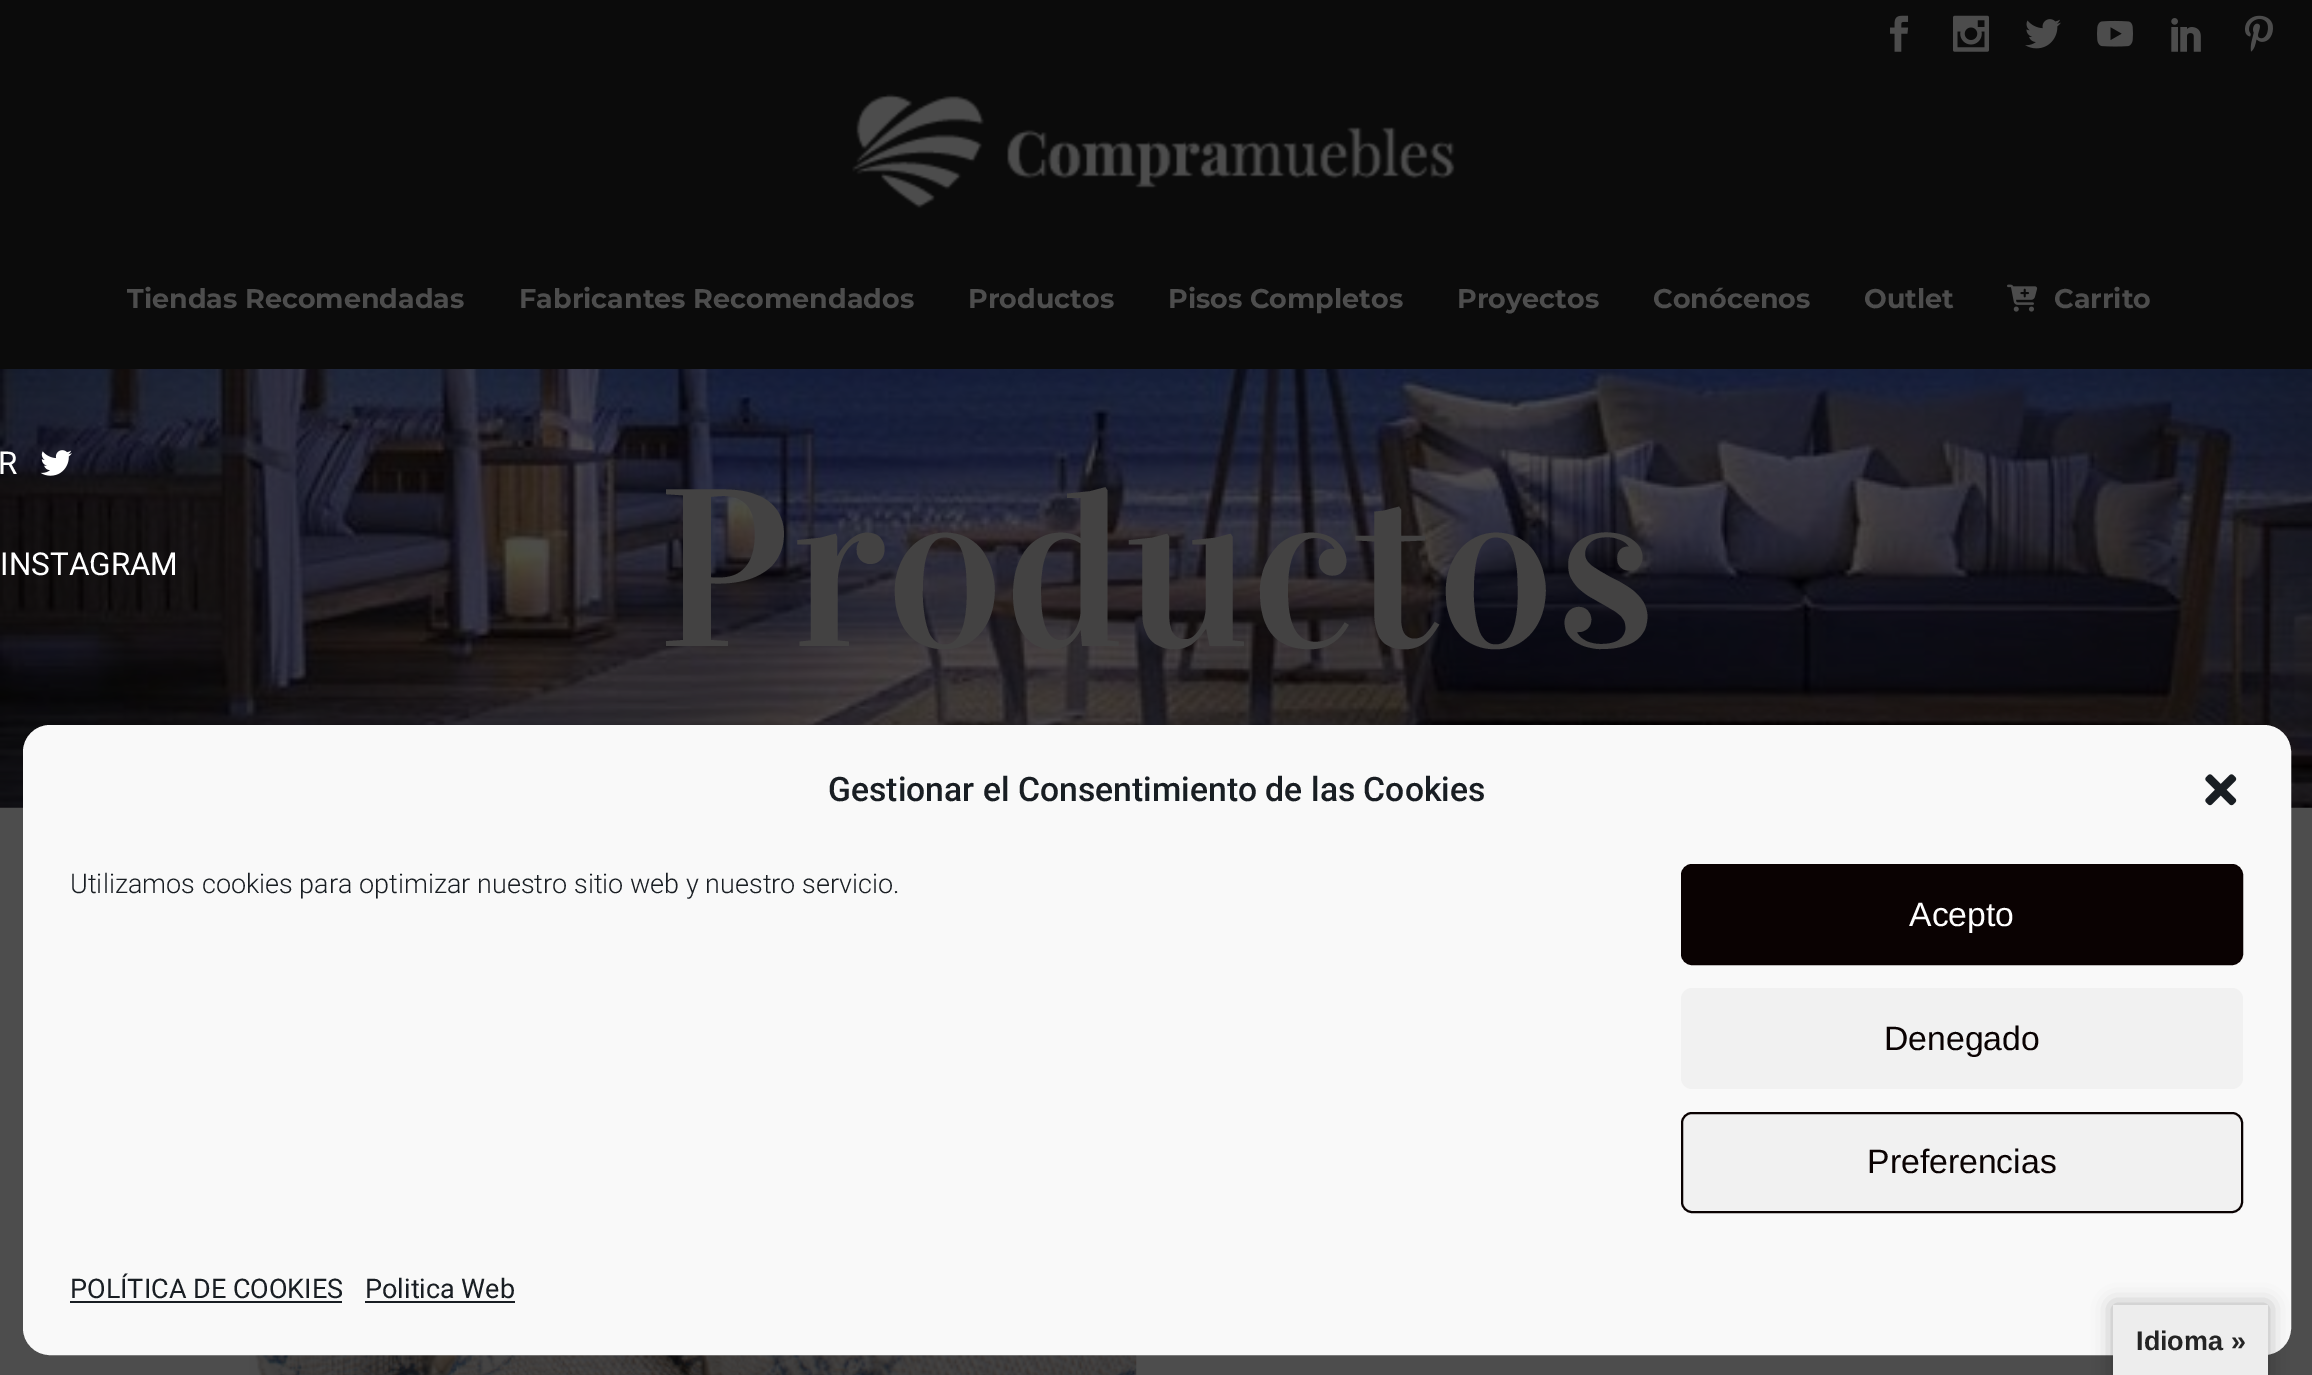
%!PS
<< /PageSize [2312 1375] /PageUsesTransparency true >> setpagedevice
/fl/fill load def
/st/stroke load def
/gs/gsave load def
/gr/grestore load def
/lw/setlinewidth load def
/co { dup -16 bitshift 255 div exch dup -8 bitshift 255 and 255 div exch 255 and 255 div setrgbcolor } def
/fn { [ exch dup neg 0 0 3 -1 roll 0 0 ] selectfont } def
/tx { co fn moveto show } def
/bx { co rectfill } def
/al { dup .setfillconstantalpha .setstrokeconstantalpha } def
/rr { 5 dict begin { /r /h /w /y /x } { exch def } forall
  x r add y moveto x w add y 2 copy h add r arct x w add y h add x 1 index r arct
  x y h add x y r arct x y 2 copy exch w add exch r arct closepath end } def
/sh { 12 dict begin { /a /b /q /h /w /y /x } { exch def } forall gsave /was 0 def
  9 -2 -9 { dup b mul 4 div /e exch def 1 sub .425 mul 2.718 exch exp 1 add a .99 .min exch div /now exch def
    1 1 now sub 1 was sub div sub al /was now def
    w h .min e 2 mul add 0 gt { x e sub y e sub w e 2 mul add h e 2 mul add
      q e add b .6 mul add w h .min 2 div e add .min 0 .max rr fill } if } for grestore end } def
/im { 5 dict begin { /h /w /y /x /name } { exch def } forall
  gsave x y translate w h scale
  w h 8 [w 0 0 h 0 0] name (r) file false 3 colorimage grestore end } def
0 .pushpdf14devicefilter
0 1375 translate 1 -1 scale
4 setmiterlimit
0 0 2312 1375 16#4D4D4D bx
(media/10.raw) 0 369 2312 439 im
(media/1.raw) 40 450 32 26 im
0 0 2312 369 16#0B0B0B bx
(media/2.raw) 1890 15 19 37 im
(media/3.raw) 1953 15 36 37 im
(media/4.raw) 2025 19 36 30 im
(media/5.raw) 2097 20 36 27 im
(media/6.raw) 2171 18 30 34 im
(media/7.raw) 2245 15 28 37 im
(media/8.raw) 852 93 603 116 im
(media/9.raw) 2007 284 31 28 im
(media/11.raw) 249 1355 888 20 im
16#F9F9F9 co
24 726 2266 628 26 rr gs fl gr
2 lw
st
(media/12.raw) 2205 774 32 32 im
16#0A0202 co
1682 865 560 99 10 rr gs fl gr
16#0A0101 co
st
16#F1F1F1 co
1681 988 562 101 11 rr fl
1682 1113 560 99 10 rr gs fl gr
16#0A0202 co
st
70 1301 272 2 16#191E23 bx
365 1301 150 2 16#191E23 bx
16#000000 co
2113 1305 155 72 0 10 .3 sh
2113 1305 155 70 16#EDEDED bx
(R) -2 474 /Roboto-Regular 31.5 16#FFFFFF tx
(INSTAGRAM) 0 575 /Roboto-Regular 31.5 16#FFFFFF tx
(Tiendas Recomendadas) 127 308 /Montserrat-Bold 27 16#4D4D4D tx
(Fabricantes Recomendados) 519 308 /Montserrat-Bold 27 16#4D4D4D tx
(Productos) 968 308 /Montserrat-Bold 27 16#4D4D4D tx
(Pisos Completos) 1168 308 /Montserrat-Bold 27 16#4D4D4D tx
(Proyectos) 1457 308 /Montserrat-Bold 27 16#4D4D4D tx
(Conócenos) 1653 308 /Montserrat-Bold 27 16#4D4D4D tx
(Outlet) 1864 308 /Montserrat-Bold 27 16#4D4D4D tx
(Carrito) 2054 308 /Montserrat-Bold 27 16#4D4D4D tx
(Productos) 658 646 /Vidaloka-Regular 225 16#434242 tx
(Gestionar el Consentimiento de las Cookies) 828 801 /Roboto-Medium 33.75 16#191E23 tx
(Utilizamos cookies para optimizar nuestro sitio web y nuestro servicio.) 70 893 /Roboto-Light 27 16#191E23 tx
(Acepto) 1909 926 /LiberationSans-Regular 33.75 16#FFFFFF tx
(Denegado) 1884 1050 /LiberationSans-Regular 33.75 16#0A0202 tx
(Preferencias) 1867 1173 /LiberationSans-Regular 33.75 16#0A0202 tx
(POLÍTICA DE COOKIES) 70 1298 /Roboto-Regular 27 16#191E23 tx
(Politica Web) 365 1298 /Roboto-Regular 27 16#191E23 tx
(Idioma ») 2136 1350 /LiberationSans-Bold 27 16#242424 tx
.poppdf14devicefilter showpage
